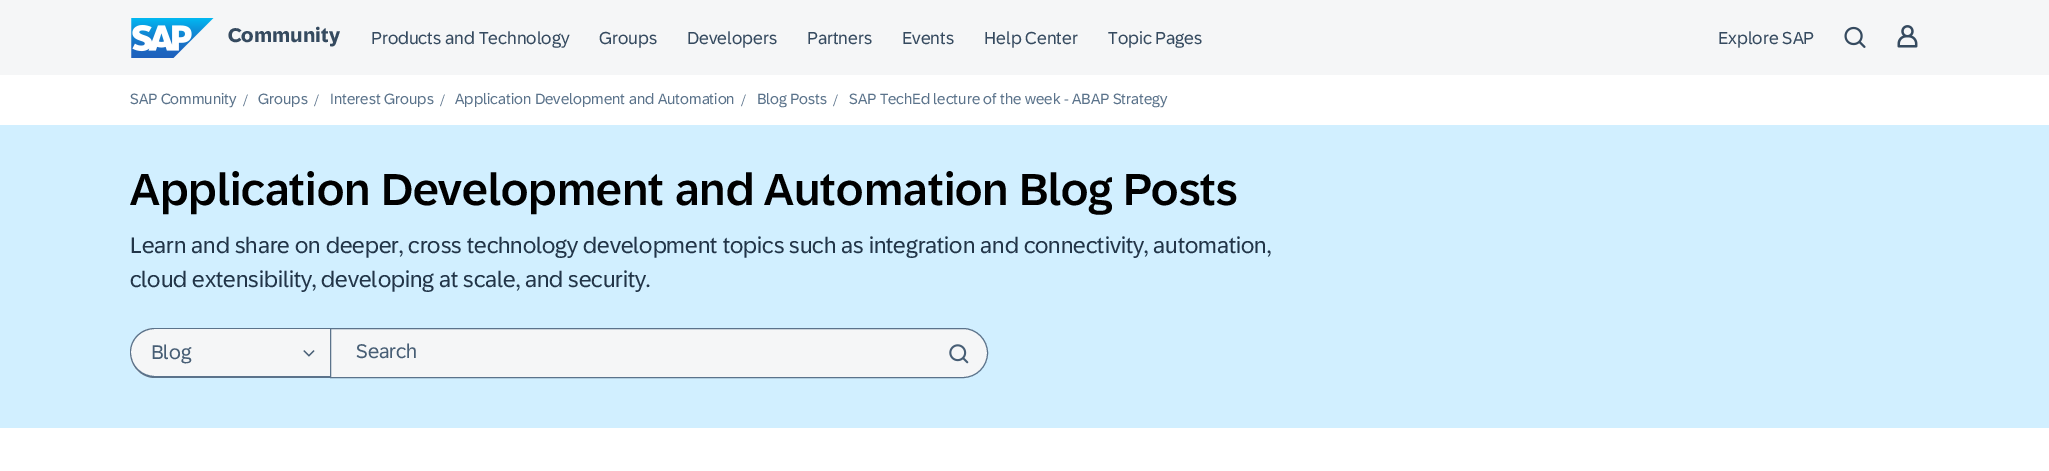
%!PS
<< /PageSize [2049 471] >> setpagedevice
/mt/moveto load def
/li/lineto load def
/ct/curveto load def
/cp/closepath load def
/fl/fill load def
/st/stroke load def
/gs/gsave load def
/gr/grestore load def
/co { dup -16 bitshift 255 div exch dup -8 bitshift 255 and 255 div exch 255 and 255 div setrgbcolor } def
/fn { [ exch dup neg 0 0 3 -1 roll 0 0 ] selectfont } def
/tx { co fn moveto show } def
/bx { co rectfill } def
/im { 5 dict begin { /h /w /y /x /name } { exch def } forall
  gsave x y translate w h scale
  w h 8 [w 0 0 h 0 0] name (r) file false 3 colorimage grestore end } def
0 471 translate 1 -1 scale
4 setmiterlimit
0 0 2049 471 16#FFFFFF bx
0 0 2049 75 16#F5F6F7 bx
(media/1.raw) 131 18 83 40 im
(media/2.raw) 1844 26 22 22 im
(media/3.raw) 1897 25 21 23 im
0 125 2049 303 16#D1EFFF bx
16#F5F6F7 co
155 328 mt 330 328 li 330 378 li 155 378 li 141 378 130 367 130 353 ct 130 339 141 328 155 328 ct cp fl
16#5B738B co
155 328 mt 330 328 li 330 378 li 155 378 li 141 378 130 366 130 352 ct 130 339 141 328 155 328 ct cp 155 329 mt 330 329 li 330 376 li 155 376 li 142 376 131 366 131 352 ct 131 339 142 329 155 329 ct cp eofill
(media/4.raw) 303 350 12 7 im
16#F5F6F7 co
330.5 328.5 mt 963 328.5 li 976.5 328.5 987.5 339.5 987.5 353 ct 987.5 366.5 976.5 377.5 963 377.5 ct 330.5 377.5 li cp gs fl gr
16#5B738B co
st
(media/5.raw) 949 344 20 20 im
(Community) 228 42 /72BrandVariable-Bold 20 16#354A5F tx
(Products and Technology) 371 44 /72BrandVariable-Regular 17.5 16#354A5F tx
(Groups) 599 44 /72BrandVariable-Regular 17.5 16#354A5F tx
(Developers) 687 44 /72BrandVariable-Regular 17.5 16#354A5F tx
(Partners) 807 44 /72BrandVariable-Regular 17.5 16#354A5F tx
(Events) 902 44 /72BrandVariable-Regular 17.5 16#354A5F tx
(Help Center) 984 44 /72BrandVariable-Regular 17.5 16#354A5F tx
(Topic Pages) 1108 44 /72BrandVariable-Regular 17.5 16#354A5F tx
(Explore SAP) 1718 44 /72BrandVariable-Regular 17.5 16#354A5F tx
(SAP Community) 130 104 /72BrandVariable-Regular 15 16#5B738B tx
(/) 243 106 /LiberationSerif-Regular 17.5 16#5B738B tx
(Groups) 258 104 /72BrandVariable-Regular 15 16#5B738B tx
(/) 314 106 /LiberationSerif-Regular 17.5 16#5B738B tx
(Interest Groups) 330 104 /72BrandVariable-Regular 15 16#5B738B tx
(/) 440 106 /LiberationSerif-Regular 17.5 16#5B738B tx
(Application Development and Automation) 455 104 /72BrandVariable-Regular 15 16#5B738B tx
(/) 741 106 /LiberationSerif-Regular 17.5 16#5B738B tx
(Blog Posts) 757 104 /72BrandVariable-Regular 15 16#5B738B tx
(/) 833 106 /LiberationSerif-Regular 17.5 16#5B738B tx
(SAP TechEd lecture of the week - ABAP Strategy) 849 104 /72BrandVariable-Regular 15 16#5B738B tx
(Application Development and Automation Blog Posts) 130 205 /72BrandVariable-Medium 45 16#000000 tx
(Learn and share on deeper, cross technology development topics such as integration and connectivity, automation,) 130 253 /72BrandVariable-Regular 22.5 16#223548 tx
(cloud extensibility, developing at scale, and security.) 130 287 /72BrandVariable-Regular 22.5 16#223548 tx
(Blog) 151 359 /72BrandVariable-Regular 20 16#475E75 tx
(Search) 356 358 /72BrandVariable-Regular 20 16#475E75 tx
showpage
